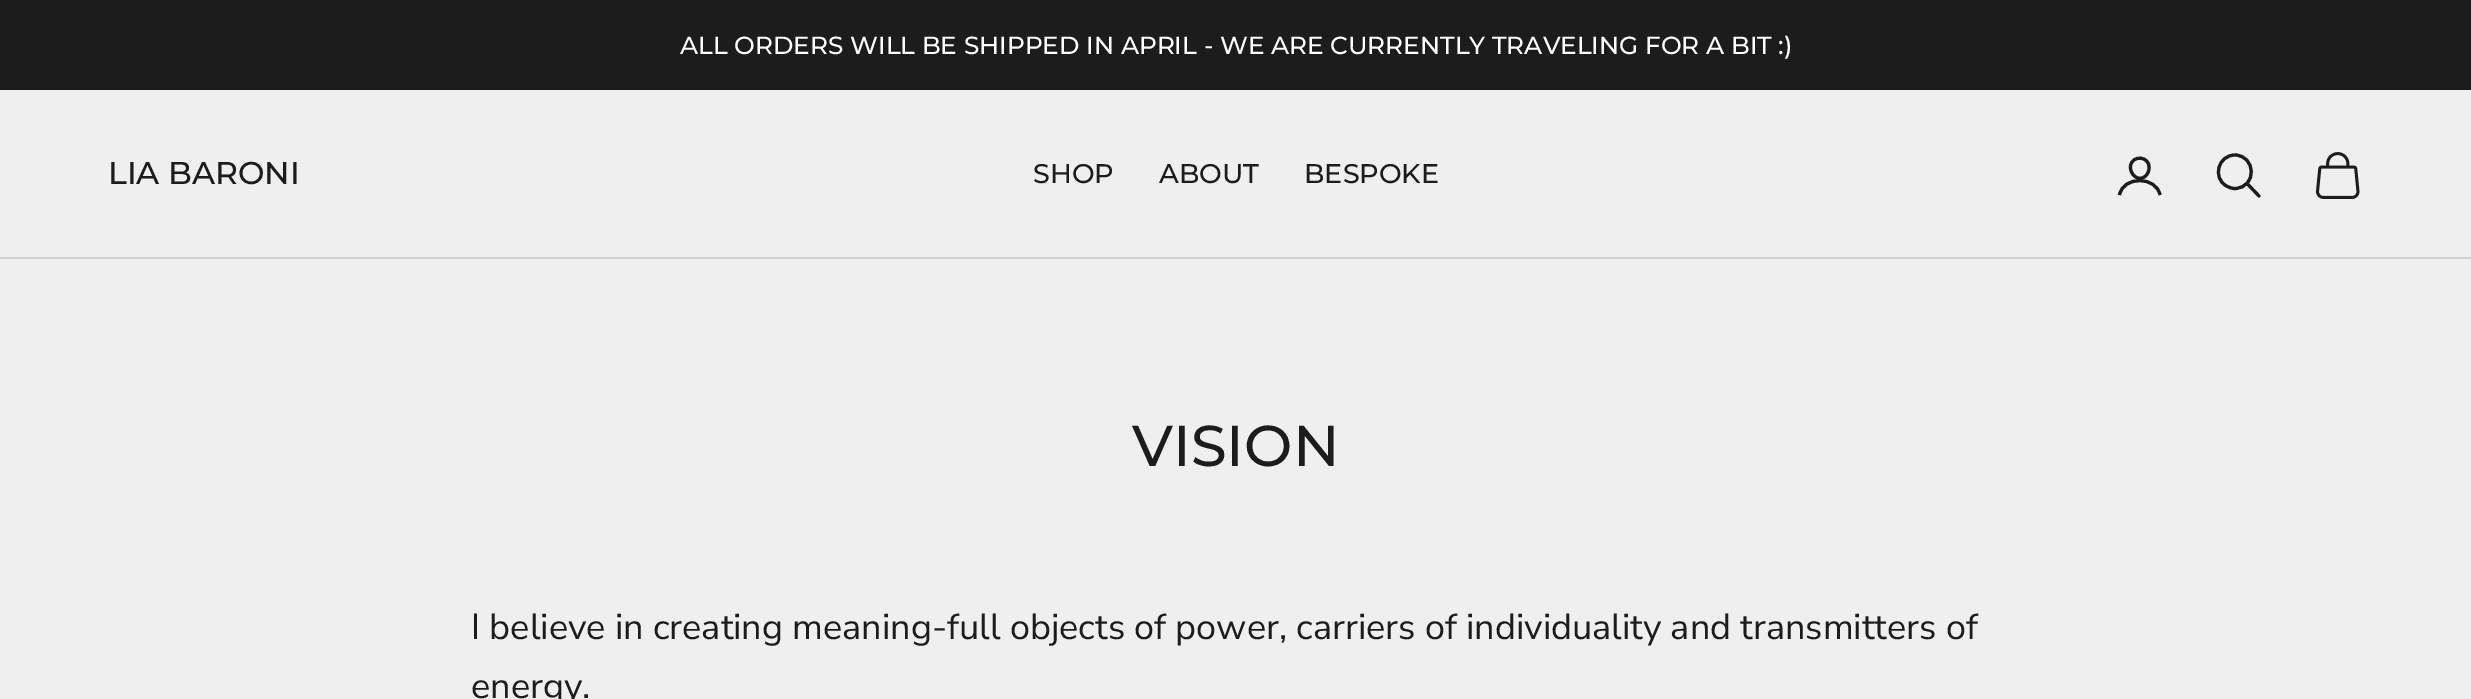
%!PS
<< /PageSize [2471 699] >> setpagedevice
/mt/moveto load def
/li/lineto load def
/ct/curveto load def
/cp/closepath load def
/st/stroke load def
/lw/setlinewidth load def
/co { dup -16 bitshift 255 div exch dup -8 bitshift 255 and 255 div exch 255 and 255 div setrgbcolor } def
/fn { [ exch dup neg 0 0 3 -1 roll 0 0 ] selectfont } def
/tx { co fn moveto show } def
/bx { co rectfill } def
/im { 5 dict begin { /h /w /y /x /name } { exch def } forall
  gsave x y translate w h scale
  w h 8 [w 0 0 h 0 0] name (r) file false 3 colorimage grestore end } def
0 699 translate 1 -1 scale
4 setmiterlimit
0 0 2471 699 16#EFEFEF bx
0 0 2471 90 16#1C1C1C bx
0 257 2471 2 16#CFCFCF bx
16#1C1C1C co
3.1 lw
1 setlinecap
1 setlinejoin
2149 168 mt 2149 171 2148 173.5 2146 175.5 ct 2139 183 2129.5 174.5 2130.5 166 ct 2132 154.5 2150 156 2149 168 ct cp st
0 setlinecap
0 setlinejoin
2119.5 195 mt 2123 175.5 2156.5 176 2160 195 ct st
2235 155 mt 2218 155 2212 178 2226.5 186 ct 2229 187.5 2232 188.5 2235 188.5 ct 2257.5 187.5 2256 155.5 2235 155 ct cp st
1 setlinecap
2247.5 184 mt 2259 196 li st
(media/1.raw) 2315 152 45 47 im
(ALL ORDERS WILL BE SHIPPED IN APRIL - WE ARE CURRENTLY TRAVELING FOR A BIT :\)) 680 54 /Montserrat-Medium 24.75 16#FFFFFF tx
(LIA BARONI) 108 184 /Montserrat-Medium 31.5 16#1C1C1C tx
(SHOP) 1033 183 /Montserrat-Medium 27 16#1C1C1C tx
(ABOUT) 1159 183 /Montserrat-Medium 27 16#1C1C1C tx
(BESPOKE) 1304 183 /Montserrat-Medium 27 16#1C1C1C tx
(VISION) 1132 466 /Montserrat-Medium 57.5 16#1C1C1C tx
(I believe in creating meaning-full objects of power, carriers of individuality and transmitters of) 471 639 /NunitoSans-Regular 36 16#1C1C1C tx
(energy.) 471 698 /NunitoSans-Regular 36 16#1C1C1C tx
showpage
